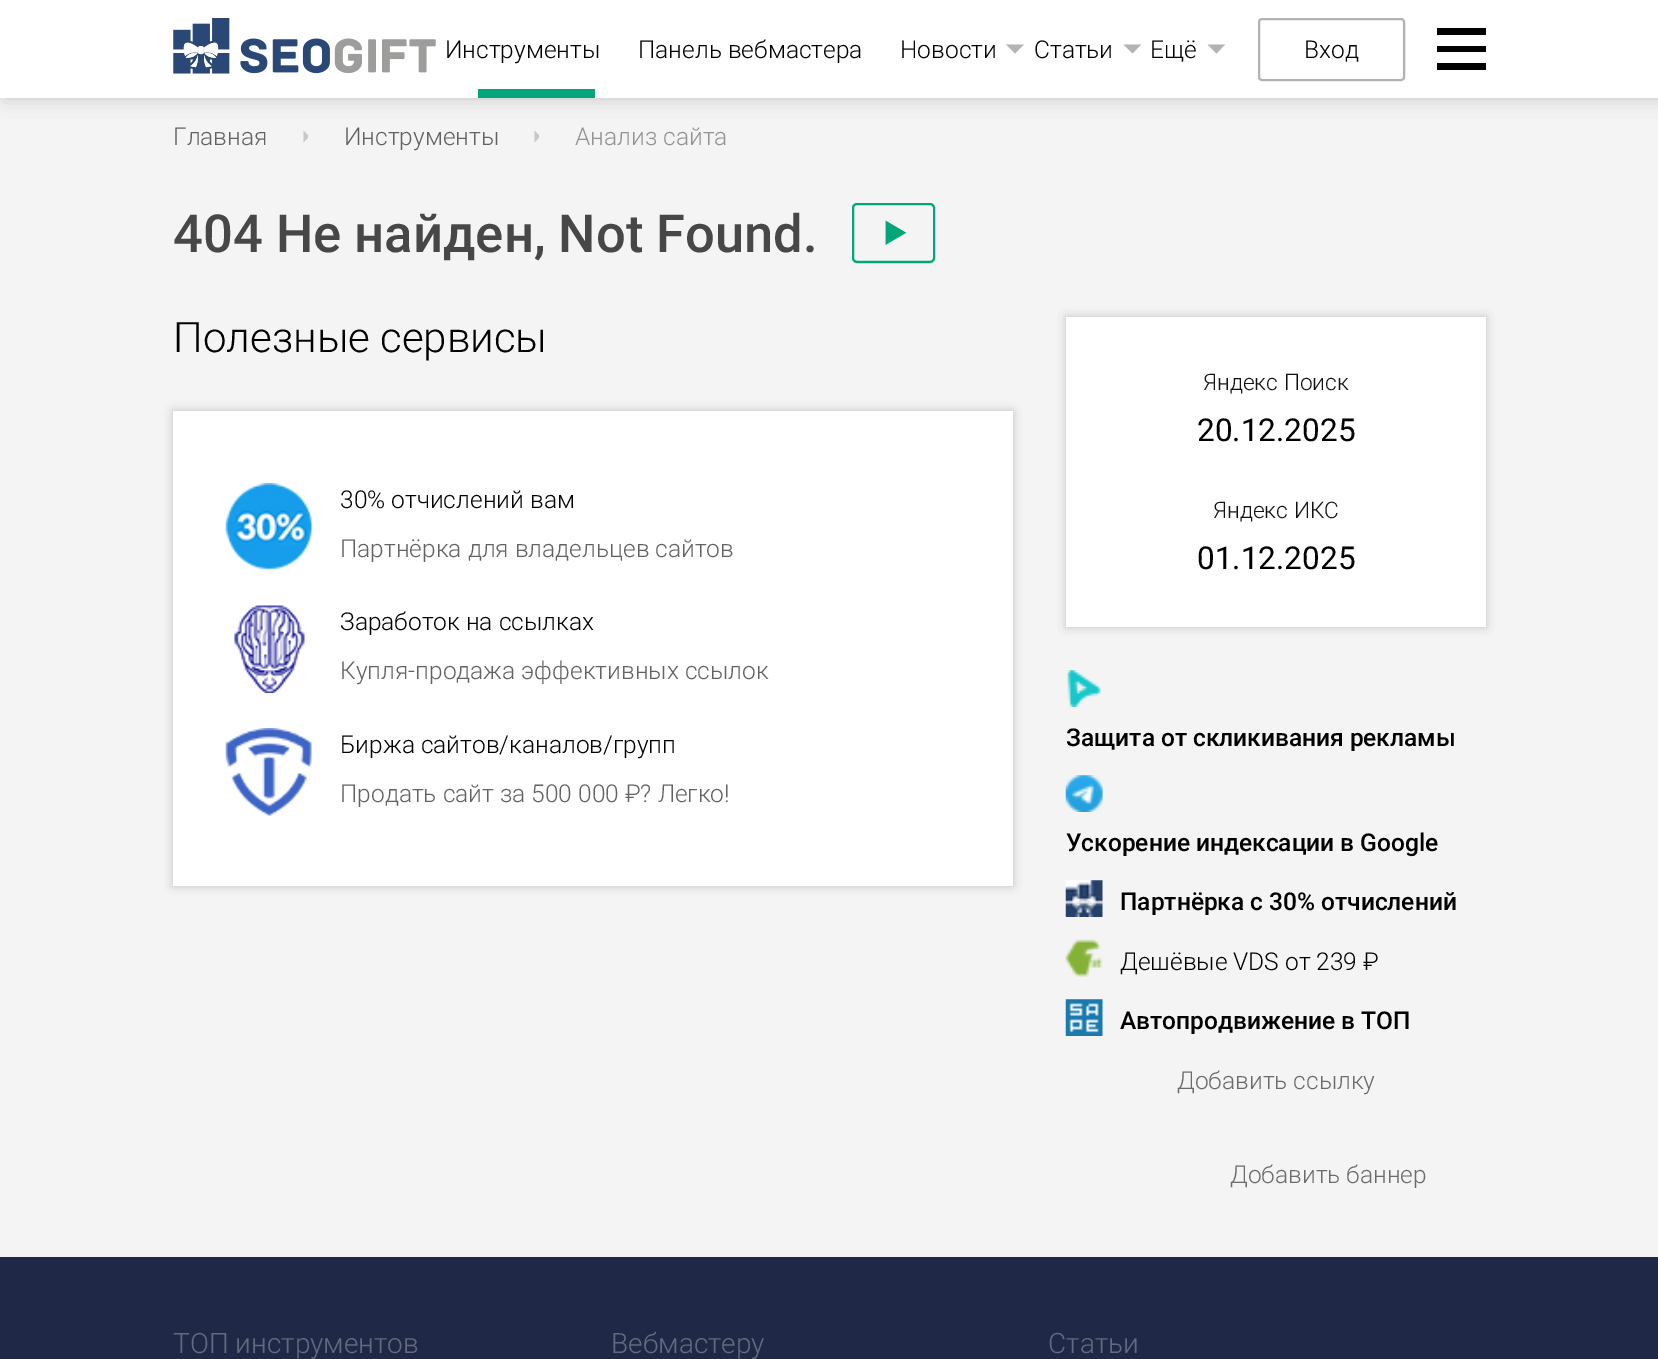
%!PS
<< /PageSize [1658 1359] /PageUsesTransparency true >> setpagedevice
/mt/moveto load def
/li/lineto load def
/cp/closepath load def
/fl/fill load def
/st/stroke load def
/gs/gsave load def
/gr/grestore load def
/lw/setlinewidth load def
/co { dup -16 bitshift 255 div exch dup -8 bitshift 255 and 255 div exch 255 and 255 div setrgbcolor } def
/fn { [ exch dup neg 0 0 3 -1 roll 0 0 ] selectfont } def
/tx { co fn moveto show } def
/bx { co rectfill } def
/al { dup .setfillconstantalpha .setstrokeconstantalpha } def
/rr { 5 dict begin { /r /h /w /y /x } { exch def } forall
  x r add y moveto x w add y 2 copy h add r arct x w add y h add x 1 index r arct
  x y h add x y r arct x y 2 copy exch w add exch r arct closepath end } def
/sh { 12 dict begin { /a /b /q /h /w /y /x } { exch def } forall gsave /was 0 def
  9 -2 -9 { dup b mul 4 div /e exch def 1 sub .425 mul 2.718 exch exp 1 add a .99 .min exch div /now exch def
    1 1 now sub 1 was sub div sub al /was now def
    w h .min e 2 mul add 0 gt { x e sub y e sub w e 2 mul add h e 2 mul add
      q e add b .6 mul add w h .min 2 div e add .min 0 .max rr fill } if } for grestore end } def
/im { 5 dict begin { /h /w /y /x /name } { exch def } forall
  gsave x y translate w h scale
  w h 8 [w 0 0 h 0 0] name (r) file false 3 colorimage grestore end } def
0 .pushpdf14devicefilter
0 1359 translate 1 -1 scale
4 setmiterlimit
0 0 1658 1359 16#F4F4F4 bx
16#000000 co
5 0 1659 98 0 9 .2 sh
0 0 1658 98 16#FFFFFF bx
(media/1.raw) 173 18 263 56 im
478 89 117 9 16#03A678 bx
16#B3B3B3 co
1006 44.5 mt 1015 53.5 li 1024 44.5 li cp fl
1123.5 44.5 mt 1132.5 53.5 li 1141 44.5 li cp fl
1207.5 44.5 mt 1216.5 53.5 li 1225 44.5 li cp fl
16#B2B2B2 co
2 lw
1259 19 145 61 3 rr st
gs
1437 19 49 60 rectclip
16#000000 co
1430 70 mt 1493 70 li 1493 63 li 1430 63 li cp 1430 52 mt 1493 52 li 1493 46 li 1430 46 li cp 1430 28 mt 1430 35 li 1493 35 li 1493 28 li cp fl
gr
16#C8C8C8 co
303.5 142.5 mt 308 137.5 li 308 135.5 li 303.5 130.5 li cp fl
534.5 142.5 mt 539 137.5 li 539 135.5 li 534.5 130.5 li cp fl
(media/2.raw) 853 203 81 60 im
16#03A678 co
853 204 81 58 4 rr st
16#000000 co
173 411 840 475 0 4.5 .2 sh
173 411 840 475 16#FFFFFF bx
(media/3.raw) 225 483 87 87 im
(media/4.raw) 234 605 71 88 im
(media/5.raw) 225 728 87 88 im
16#000000 co
1066 317 420 310 0 4.5 .2 sh
1066 317 420 310 16#FFFFFF bx
(media/6.raw) 1067 670 34 37 im
(media/7.raw) 1065 775 38 37 im
(media/8.raw) 1065 880 38 37 im
(media/9.raw) 1065 939 38 38 im
(media/10.raw) 1065 999 38 37 im
0 1257 1658 102 16#202847 bx
(Инструменты) 445 58 /Roboto-Light 24.5 16#000000 tx
(Панель вебмастера) 638 58 /Roboto-Light 24.5 16#000000 tx
(Новости) 900 58 /Roboto-Light 24.5 16#000000 tx
(Статьи) 1034 58 /Roboto-Light 24.5 16#000000 tx
(Ещё) 1150 58 /Roboto-Light 24.5 16#000000 tx
(Вход) 1304 58 /Roboto-Light 24.5 16#000000 tx
(Главная) 173 145 /Roboto-Light 24.5 16#626262 tx
(Инструменты) 344 145 /Roboto-Light 24.5 16#626262 tx
(Анализ сайта) 575 145 /Roboto-Light 24.5 16#929292 tx
(404 Не найден, Not Found.) 173 252 /Roboto-Medium 52.5 16#474747 tx
(Полезные сервисы) 173 352 /Roboto-Light 42 16#000000 tx
(30% отчислений вам) 340 508 /Roboto-Light 24.5 16#000000 tx
(Партнёрка для владельцев сайтов) 340 557 /Roboto-Light 24.5 16#626262 tx
(Заработок на ссылках) 340 630 /Roboto-Light 24.5 16#000000 tx
(Купля-продажа эффективных ссылок) 340 679 /Roboto-Light 24.5 16#626262 tx
(Биржа сайтов/каналов/групп) 340 753 /Roboto-Light 24.5 16#000000 tx
(Продать сайт за 500 000 ₽? Легко!) 340 802 /Roboto-Light 24.5 16#626262 tx
(Яндекс Поиск) 1203 390 /Roboto-Light 22.75 16#121210 tx
(20.12.2025) 1197 441 /Roboto-Regular 31.5 16#000000 tx
(Яндекс ИКС) 1213 518 /Roboto-Light 22.75 16#121210 tx
(01.12.2025) 1197 569 /Roboto-Regular 31.5 16#000000 tx
(Защита от скликивания рекламы) 1066 746 /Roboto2-Medium 24.5 16#000000 tx
(Ускорение индексации в Google) 1066 851 /Roboto2-Medium 24.5 16#000000 tx
(Партнёрка с 30% отчислений) 1120 910 /Roboto2-Medium 24.5 16#000000 tx
(Дешёвые VDS от 239 ₽) 1120 970 /Roboto-Light 24.5 16#000000 tx
(Автопродвижение в ТОП) 1120 1029 /Roboto2-Medium 24.5 16#000000 tx
(Добавить ссылку) 1177 1089 /Roboto-Light 24.5 16#6B6B6B tx
(Добавить баннер) 1230 1183 /Roboto-Light 24.5 16#6B6B6B tx
(ТОП инструментов) 173 1353 /Roboto-Light 28 16#63697E tx
(Вебмастеру) 611 1353 /Roboto-Light 28 16#63697E tx
(Статьи) 1048 1353 /Roboto-Light 28 16#63697E tx
.poppdf14devicefilter showpage
